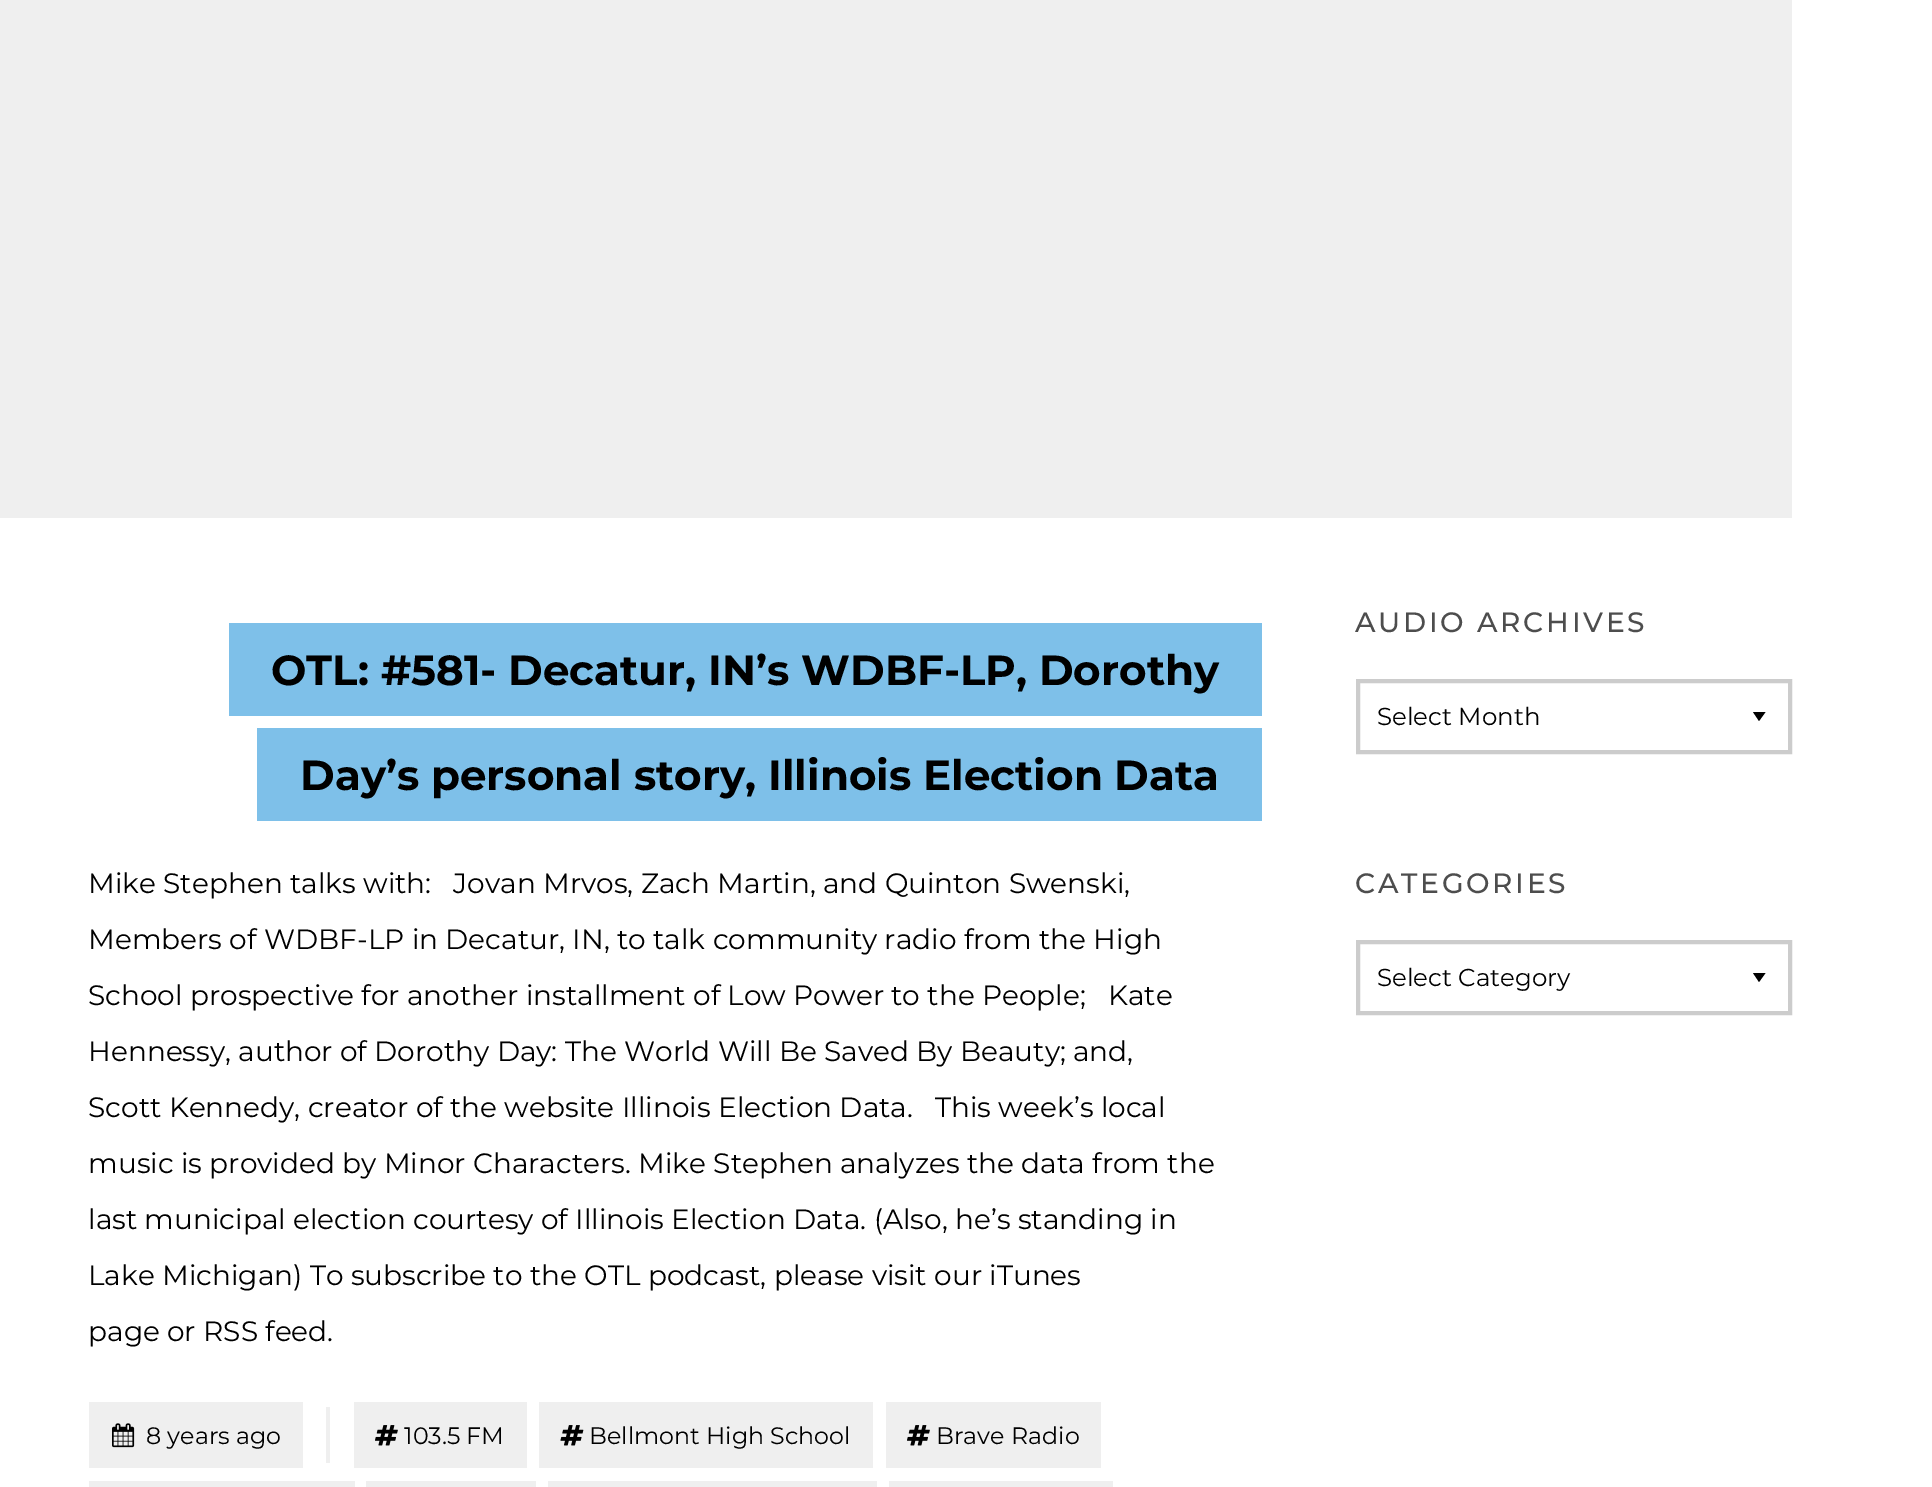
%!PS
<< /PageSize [1932 1487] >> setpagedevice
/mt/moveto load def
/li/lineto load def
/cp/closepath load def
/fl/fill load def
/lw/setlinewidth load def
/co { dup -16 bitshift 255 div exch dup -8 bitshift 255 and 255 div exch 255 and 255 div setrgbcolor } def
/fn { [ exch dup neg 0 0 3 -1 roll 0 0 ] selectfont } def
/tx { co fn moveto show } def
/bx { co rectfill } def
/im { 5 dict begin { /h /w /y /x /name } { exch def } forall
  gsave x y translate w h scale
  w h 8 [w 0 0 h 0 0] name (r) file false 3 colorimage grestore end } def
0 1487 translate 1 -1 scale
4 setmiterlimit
0 0 1932 1487 16#FFFFFF bx
0 0 1792 518 16#EFEFEF bx
16#7EC0E9 co
229 623 mt 229 716 li 1178 716 li 271 716 li 271 623 li cp fl
313 716 mt 1262 716 li 1262 623 li 1220 623 li 1220 716 li cp fl
271 623 949 93 16#7EC0E9 bx
257 728 mt 257 821 li 1178 821 li 299 821 li 299 728 li cp fl
341 821 mt 1262 821 li 1262 728 li 1220 728 li 1220 821 li cp fl
299 728 921 93 16#7EC0E9 bx
89 1402 214 66 16#EFEFEF bx
(media/1.raw) 112 1423 23 25 im
326 1407 4 56 16#EFEFEF bx
354 1402 173 66 16#EFEFEF bx
(media/2.raw) 375 1425 23 21 im
539 1402 334 66 16#EFEFEF bx
(media/3.raw) 560 1425 24 21 im
886 1402 215 66 16#EFEFEF bx
(media/2.raw) 907 1425 23 21 im
89 1481 266 6 16#EFEFEF bx
366 1481 170 6 16#EFEFEF bx
548 1481 329 6 16#EFEFEF bx
889 1481 224 6 16#EFEFEF bx
16#000000 co
1759 721 mt 1753 712 li 1765.5 712 li cp fl
16#CCCCCC co
4 lw
1358 681 432 71 rectstroke
16#000000 co
1759 982 mt 1753 973 li 1765.5 973 li cp fl
16#CCCCCC co
1358 942 432 71 rectstroke
(OTL: #581- Decatur, IN’s WDBF-LP, Dorothy) 271 685 /Montserrat-Bold 42 16#000000 tx
(Day’s personal story, Illinois Election Data) 300 790 /Montserrat-Bold 42 16#000000 tx
(Mike Stephen talks with:   Jovan Mrvos, Zach Martin, and Quinton Swenski,) 88 893 /Montserrat-Regular 28 16#000000 tx
(Members of WDBF-LP in Decatur, IN, to talk community radio from the High) 88 949 /Montserrat-Regular 28 16#000000 tx
(School prospective for another installment of Low Power to the People;   Kate) 88 1005 /Montserrat-Regular 28 16#000000 tx
(Hennessy, author of Dorothy Day: The World Will Be Saved By Beauty; and,) 88 1061 /Montserrat-Regular 28 16#000000 tx
(Scott Kennedy, creator of the website Illinois Election Data.   This week’s local) 88 1117 /Montserrat-Regular 28 16#000000 tx
(music is provided by Minor Characters. Mike Stephen analyzes the data from the) 88 1173 /Montserrat-Regular 28 16#000000 tx
(last municipal election courtesy of Illinois Election Data. \(Also, he’s standing in) 88 1229 /Montserrat-Regular 28 16#000000 tx
(Lake Michigan\) To subscribe to the OTL podcast, please visit our iTunes) 88 1285 /Montserrat-Regular 28 16#000000 tx
(page or RSS feed.) 88 1341 /Montserrat-Regular 28 16#000000 tx
(8 years ago) 146 1444 /Montserrat-Regular 23.75 16#000000 tx
(103.5 FM) 404 1444 /Montserrat-Regular 23.75 16#000000 tx
(Bellmont High School) 589 1444 /Montserrat-Regular 23.75 16#000000 tx
(Brave Radio) 936 1444 /Montserrat-Regular 23.75 16#000000 tx
/Montserrat-Medium 28 fn
16#4D4D4D co
1355 632 mt 2.75 0 (AUDIO ARCHIVES) ashow
(Select Month) 1377 725 /Montserrat-Regular 24.5 16#000000 tx
/Montserrat-Medium 28 fn
16#4D4D4D co
1355 893 mt 2.75 0 (CATEGORIES) ashow
(Select Category) 1377 986 /Montserrat-Regular 24.5 16#000000 tx
showpage
